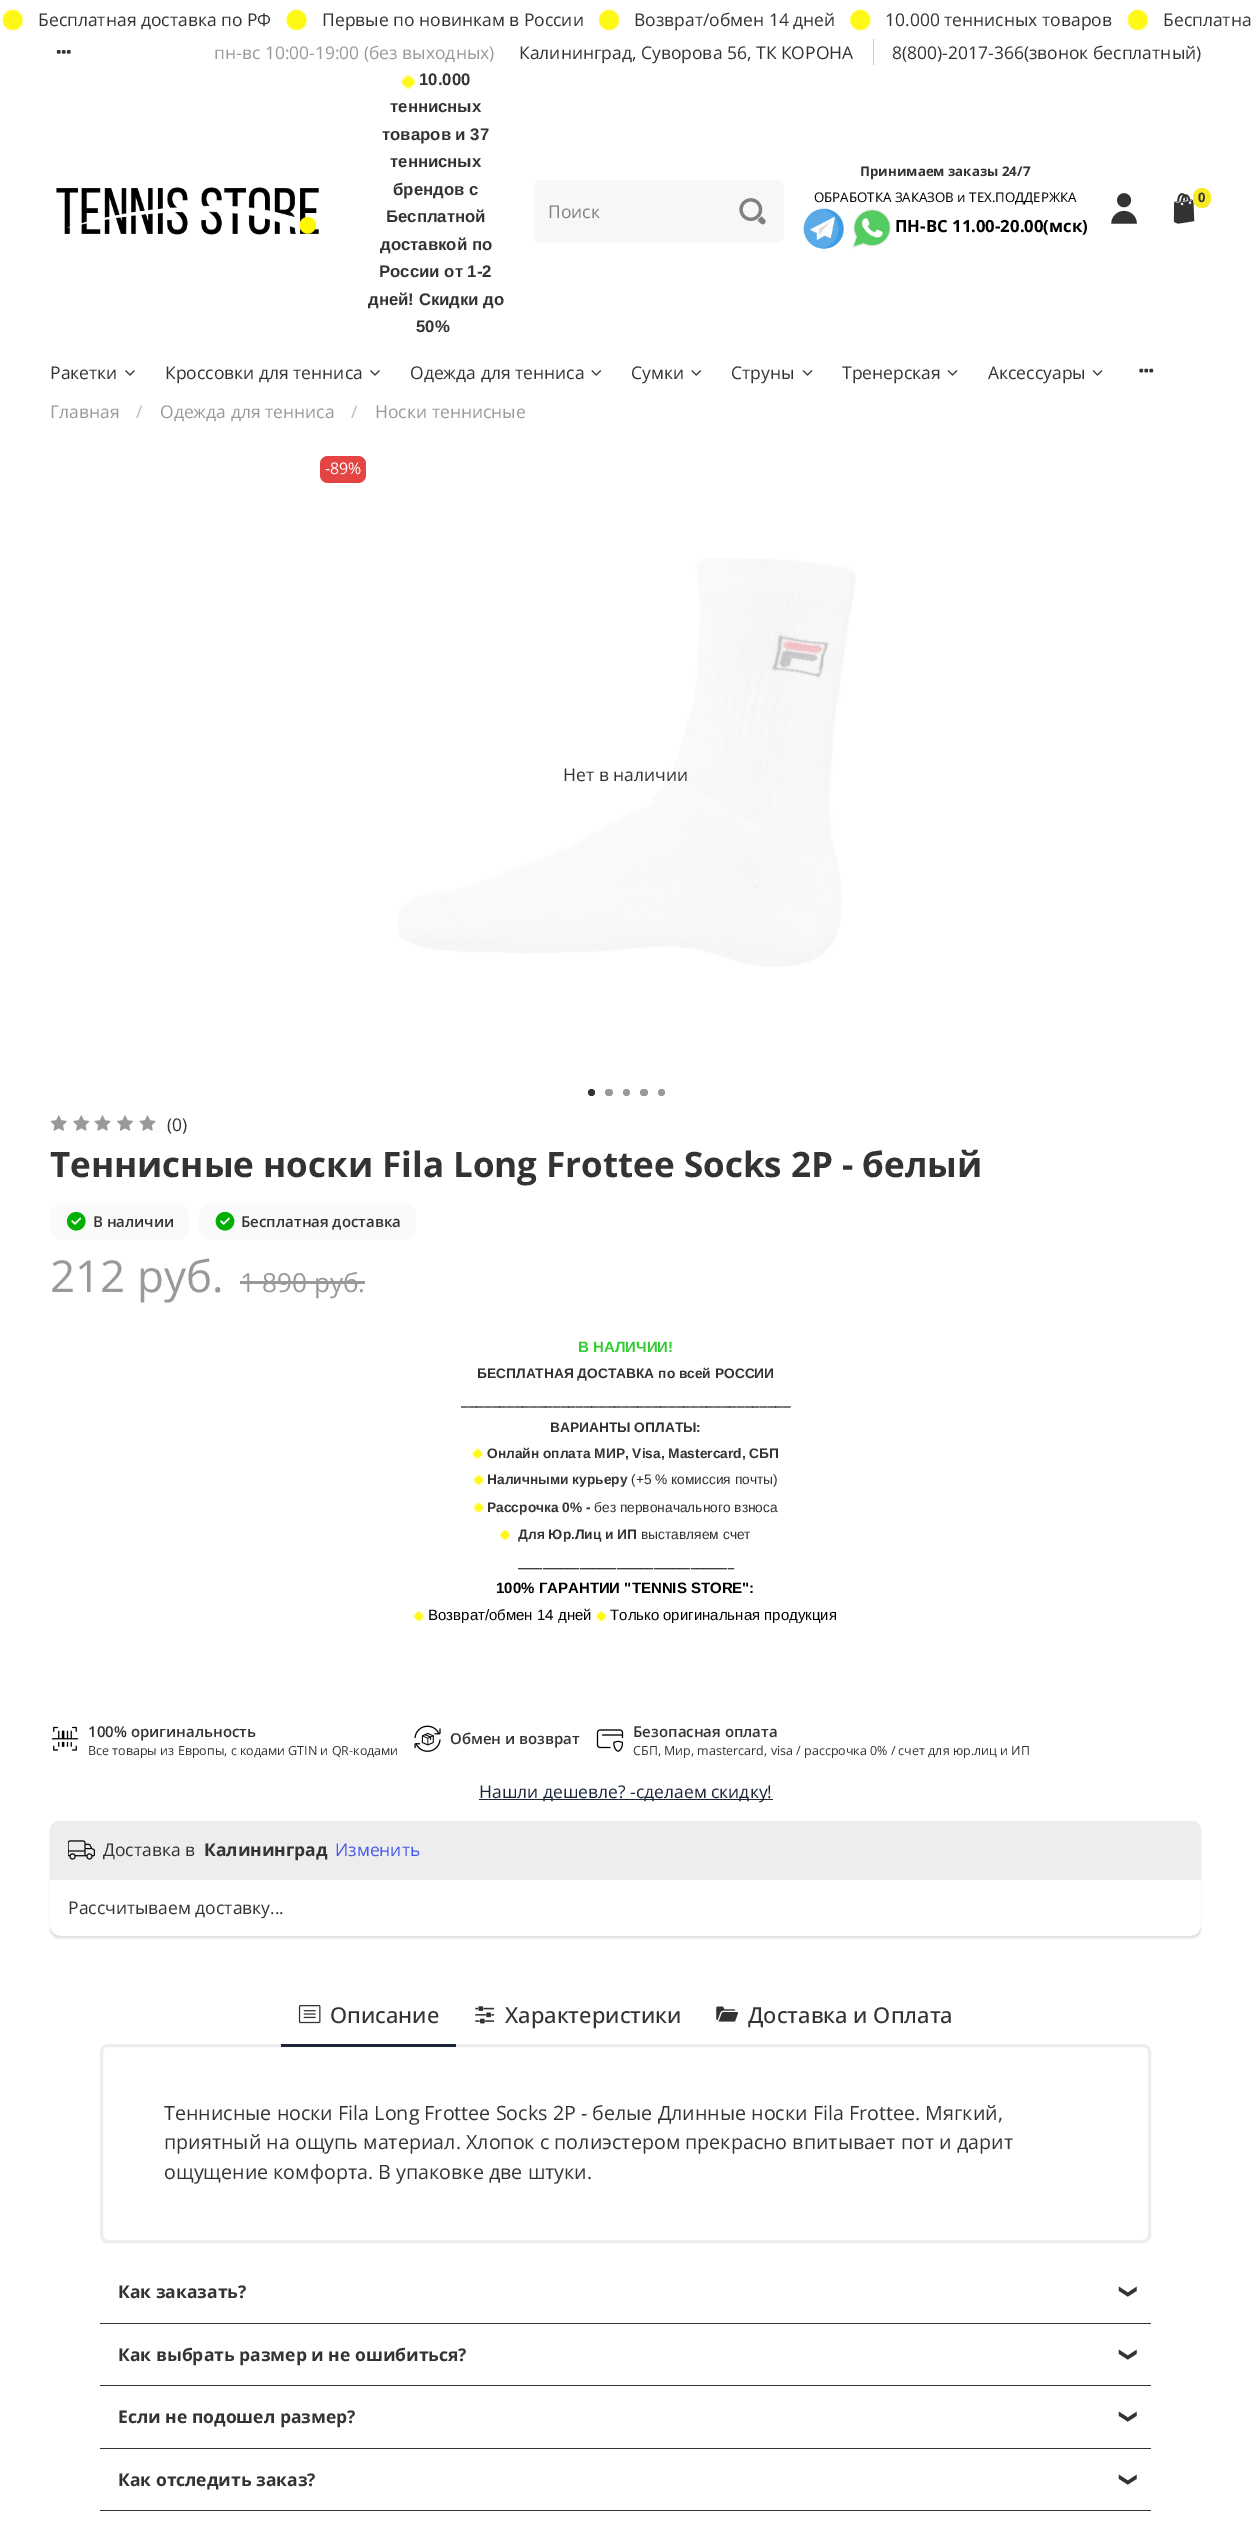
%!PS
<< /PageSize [1251 2533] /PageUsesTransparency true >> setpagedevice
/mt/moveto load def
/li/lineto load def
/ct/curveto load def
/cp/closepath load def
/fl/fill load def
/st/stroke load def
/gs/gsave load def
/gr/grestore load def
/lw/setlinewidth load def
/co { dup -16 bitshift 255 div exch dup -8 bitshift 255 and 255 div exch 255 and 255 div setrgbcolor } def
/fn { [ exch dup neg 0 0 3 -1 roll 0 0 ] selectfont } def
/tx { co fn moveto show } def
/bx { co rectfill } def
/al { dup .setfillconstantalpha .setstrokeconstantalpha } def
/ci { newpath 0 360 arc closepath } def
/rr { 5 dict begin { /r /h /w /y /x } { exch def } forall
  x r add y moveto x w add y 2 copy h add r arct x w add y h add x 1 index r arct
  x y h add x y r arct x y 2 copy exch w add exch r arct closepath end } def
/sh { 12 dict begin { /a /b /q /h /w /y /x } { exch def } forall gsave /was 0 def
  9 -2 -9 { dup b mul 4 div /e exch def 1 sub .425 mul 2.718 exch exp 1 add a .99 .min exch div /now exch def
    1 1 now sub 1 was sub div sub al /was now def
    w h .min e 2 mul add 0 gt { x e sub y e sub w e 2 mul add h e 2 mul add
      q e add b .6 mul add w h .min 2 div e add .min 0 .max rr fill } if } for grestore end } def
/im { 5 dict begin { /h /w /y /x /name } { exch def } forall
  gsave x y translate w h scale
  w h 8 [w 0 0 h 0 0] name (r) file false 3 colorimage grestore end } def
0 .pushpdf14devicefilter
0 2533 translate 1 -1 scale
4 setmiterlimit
0 0 1251 2533 16#FFFFFF bx
(media/1.raw) 2 9 22 22 im
(media/2.raw) 286 9 22 22 im
(media/3.raw) 598 9 22 22 im
(media/4.raw) 849 9 23 22 im
(media/1.raw) 1127 9 22 22 im
(media/5.raw) 56 50 15 4 im
873 39 1 26 16#CCCCCC bx
(media/6.raw) 56 187 263 48 im
(media/7.raw) 401 75 14 14 im
(media/8.raw) 803 208 41 41 im
(media/9.raw) 851 208 41 41 im
(media/10.raw) 1111 193 26 31 im
(media/11.raw) 1173 193 22 31 im
16#F9EA28 co
1193 188 18 20 9 rr fl
16#F7F7F7 co
542 180 mt 721 180 li 721 243 li 542 243 li 537.5 243 534 239.5 534 235 ct 534 188 li 534 183.5 537.5 180 542 180 ct cp fl
541 180 mt 721 180 li 721 242 li 541 242 li 537 242 534 239 534 235 ct 534 188 li 534 183 537 180 541 180 ct cp 541 181 mt 721 181 li 721 241 li 541 241 li 538 241 535 238 535 235 ct 535 188 li 535 184 538 181 541 181 ct cp eofill
721 180 mt 776 180 li 780.5 180 784 183.5 784 188 ct 784 235 li 784 239.5 780.5 243 776 243 ct 721 243 li cp fl
(media/12.raw) 739 198 27 27 im
(media/13.raw) 125 370 10 6 im
(media/13.raw) 370 370 10 6 im
(media/14.raw) 591 370 11 6 im
(media/14.raw) 691 370 11 6 im
(media/15.raw) 802 370 11 6 im
(media/15.raw) 947 370 11 6 im
(media/15.raw) 1092 370 11 6 im
(media/16.raw) 1139 368 15 5 im
16#E44542 co
320 456 46 27 8 rr fl
(media/17.raw) 398 558 458 409 im
16#333333 co
591.5 1092.5 3.5 ci fl
16#999999 co
605 1089 8 7 3.5 rr fl
626.5 1092.5 3.5 ci fl
640 1089 8 7 3.5 rr fl
661.5 1092.5 3.5 ci fl
(media/18.raw) 50 1115 17 16 im
(media/19.raw) 73 1115 17 16 im
(media/20.raw) 94 1115 17 16 im
(media/21.raw) 117 1115 16 16 im
(media/20.raw) 139 1115 17 16 im
16#FAFAFA co
50 1203 139 37 13 rr fl
(media/22.raw) 66 1211 20 20 im
199 1203 217 37 13 rr fl
(media/23.raw) 215 1211 20 20 im
240 1281 125 3 16#999999 bx
(media/24.raw) 472 1448 11 11 im
(media/25.raw) 473 1475 11 10 im
(media/26.raw) 473 1502 11 11 im
(media/27.raw) 500 1530 10 10 im
(media/28.raw) 413 1611 11 11 im
(media/29.raw) 596 1611 11 11 im
(media/30.raw) 51 1726 28 25 im
(media/31.raw) 414 1725 27 27 im
(media/32.raw) 596 1729 28 23 im
479 1799 294 1 16#1B2738 bx
gs
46 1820 mt 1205 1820 li 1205 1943 li 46 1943 li cp 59 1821 mt 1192 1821 li 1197 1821 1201 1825 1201 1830 ct 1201 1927 li 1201 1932 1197 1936 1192 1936 ct 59 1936 li 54 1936 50 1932 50 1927 ct 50 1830 li 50 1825 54 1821 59 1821 ct cp eoclip newpath
16#000000 co
50 1824 1151 115 9 1 .05 sh
gr
gs
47 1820 mt 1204 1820 li 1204 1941 li 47 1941 li cp 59 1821 mt 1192 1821 li 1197 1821 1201 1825 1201 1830 ct 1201 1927 li 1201 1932 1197 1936 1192 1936 ct 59 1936 li 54 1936 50 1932 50 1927 ct 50 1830 li 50 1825 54 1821 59 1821 ct cp eoclip newpath
16#000000 co
50 1823 1151 115 9 .5 .05 sh
gr
16#EDEDED co
59 1821 mt 1192 1821 li 1197 1821 1201 1825 1201 1830 ct 1201 1880 li 50 1880 li 50 1830 li 50 1825 54 1821 59 1821 ct cp fl
(media/33.raw) 68 1840 27 20 im
3 lw
101.5 2045.5 1048 196 6.5 rr st
281 2044 175 3 16#1B2738 bx
(media/34.raw) 298 2005 23 19 im
(media/35.raw) 475 2006 20 18 im
(media/36.raw) 716 2006 23 16 im
100 2323 1051 1 16#333333 bx
100 2385 1051 1 16#333333 bx
100 2448 1051 1 16#333333 bx
100 2510 1051 1 16#333333 bx
(Бесплатная доставка по РФ) 38 26 /OpenSans-Regular 17.5 16#333333 tx
(Первые по новинкам в России) 322 26 /OpenSans-Regular 17.5 16#333333 tx
(Возврат/обмен 14 дней) 634 26 /OpenSans-Regular 17.5 16#333333 tx
(10.000 теннисных товаров) 885 26 /OpenSans-Regular 17.5 16#333333 tx
(Бесплатна) 1163 26 /OpenSans-Regular 17.5 16#333333 tx
(пн-вс 10:00-19:00 \(без выходных\)) 214 59 /OpenSans-Regular 17.5 16#999999 tx
(Калининград, Суворова 56, ТК КОРОНА) 519 59 /OpenSans-Regular 17.5 16#333333 tx
(8\(800\)-2017-366\(звонок бесплатный\)) 892 59 /OpenSans-Regular 17.5 16#333333 tx
(10.000) 419 85 /LiberationSans-Bold 16.75 16#333333 tx
(теннисных) 390 112 /LiberationSans-Bold 16.75 16#333333 tx
(товаров и 37) 382 140 /LiberationSans-Bold 16.75 16#333333 tx
(теннисных) 390 167 /LiberationSans-Bold 16.75 16#333333 tx
(брендов c) 393 195 /LiberationSans-Bold 16.75 16#333333 tx
(Бесплатной) 386 222 /LiberationSans-Bold 16.75 16#333333 tx
(доставкой по) 380 250 /LiberationSans-Bold 16.75 16#333333 tx
(России от 1-2) 379 277 /LiberationSans-Bold 16.75 16#333333 tx
(дней! Скидки до) 368 305 /LiberationSans-Bold 16.75 16#333333 tx
(50%) 416 332 /LiberationSans-Bold 16.75 16#333333 tx
(Принимаем заказы 24/7) 860 176 /OpenSans-Bold 13.3 16#333333 tx
(ОБРАБОТКА ЗАКАЗОВ и ТЕХ.ПОДДЕРЖКА) 814 202 /OpenSans-Regular 13.3 16#000000 tx
(ПН-ВС 11.00-20.00\(мск\)) 895 232 /OpenSans-Bold 16.75 16#000000 tx
(0) 1198 202 /OpenSans-Bold 13 16#333333 tx
(Поиск) 548 218 /OpenSans-Regular 17.5 16#808080 tx
(Ракетки) 50 379 /OpenSans-Regular 17.5 16#333333 tx
(Кроссовки для тенниса) 165 379 /OpenSans-Regular 17.5 16#333333 tx
(Одежда для тенниса) 410 379 /OpenSans-Regular 17.5 16#333333 tx
(Сумки) 631 379 /OpenSans-Regular 17.5 16#333333 tx
(Струны) 731 379 /OpenSans-Regular 17.5 16#333333 tx
(Тренерская) 842 379 /OpenSans-Regular 17.5 16#333333 tx
(Аксессуары) 988 379 /OpenSans-Regular 17.5 16#333333 tx
(Главная) 50 418 /OpenSans-Regular 17.5 16#999999 tx
(/) 136 418 /OpenSans-Regular 17.5 16#B8B8B8 tx
(Одежда для тенниса) 160 418 /OpenSans-Regular 17.5 16#999999 tx
(/) 351 418 /OpenSans-Regular 17.5 16#B8B8B8 tx
(Носки теннисные) 375 418 /OpenSans-Regular 17.5 16#999999 tx
(-89%) 325 474 /OpenSans-Regular 16 16#FFFFFF tx
(Нет в наличии) 563 781 /OpenSans-Regular 17.5 16#333333 tx
(\(0\)) 167 1131 /OpenSans-Regular 17.5 16#333333 tx
(Теннисные носки Fila Long Frottee Socks 2P - белый) 50 1177 /OpenSans-Bold 35 16#333333 tx
(В наличии) 93 1227 /OpenSans-SemiBold 15 16#333333 tx
(Бесплатная доставка) 241 1227 /OpenSans-SemiBold 15 16#333333 tx
(212 руб.) 50 1292 /OpenSans-Regular 44 16#999999 tx
(1 890 руб.) 240 1292 /OpenSans-Regular 26.25 16#999999 tx
(В НАЛИЧИИ!) 578 1352 /LiberationSans-Bold 15 16#33CC33 tx
(БЕСПЛАТНАЯ ДОСТАВКА по всей РОССИИ) 477 1378 /LiberationSans-Bold 13.75 16#333333 tx
(___________________________________________) 461 1405 /OpenSans-Regular 17.5 16#000000 tx
(ВАРИАНТЫ ОПЛАТЫ:) 550 1432 /LiberationSans-Bold 13.75 16#333333 tx
(Онлайн оплата МИР, Visa, Mastercard, СБП) 487 1458 /LiberationSans-Bold 13.75 16#333333 tx
(Наличными курьеру) 487 1484 /LiberationSans-Bold 13.75 16#333333 tx
(\(+5 % комиссия почты\)) 631 1484 /LiberationSans-Regular 13.75 16#333333 tx
(Рассрочка 0% -) 487 1512 /LiberationSans-Bold 13.75 16#333333 tx
(без первоначального взноса) 594 1512 /LiberationSans-Regular 13.75 16#333333 tx
(Для Юр.Лиц и ИП) 518 1539 /LiberationSans-Bold 13.75 16#333333 tx
(выставляем счет) 641 1539 /LiberationSans-Regular 13.75 16#333333 tx
(___________________________________) 518 1567 /OpenSans-Bold 15 16#000000 tx
(100% ГАРАНТИИ "TENNIS STORE":) 496 1593 /LiberationSans-Bold 15 16#000000 tx
(Возврат/обмен 14 дней) 428 1620 /LiberationSans-Regular 15 16#000000 tx
(Только оригинальная продукция) 610 1620 /LiberationSans-Regular 15 16#000000 tx
(100% оригинальность) 88 1737 /OpenSans-SemiBold 15 16#333333 tx
(Все товары из Европы, с кодами GTIN и QR-кодами) 88 1755 /OpenSans-Regular 12.5 16#333333 tx
(Обмен и возврат) 450 1744 /OpenSans-SemiBold 15 16#333333 tx
(Безопасная оплата) 633 1737 /OpenSans-SemiBold 15 16#333333 tx
(СБП, Мир, mastercard, visa / рассрочка 0% / счет для юр.лиц и ИП) 633 1755 /OpenSans-Regular 12.5 16#333333 tx
(Нашли дешевле? -сделаем скидку!) 479 1798 /OpenSans-Regular 17.5 16#1B2738 tx
(Доставка в) 103 1856 /OpenSans-Regular 17.5 16#333333 tx
(Калининград) 204 1856 /OpenSans-Bold 17.5 16#333333 tx
(Изменить) 335 1856 /OpenSans-Regular 17.5 16#4657EF tx
(Рассчитываем доставку...) 68 1914 /OpenSans-Regular 17.5 16#333333 tx
(Описание) 330 2023 /OpenSans-Medium 21.9 16#333333 tx
(Характеристики) 505 2023 /OpenSans-Medium 21.9 16#333333 tx
(Доставка и Оплата) 748 2023 /OpenSans-Medium 21.9 16#333333 tx
(Теннисные носки Fila Long Frottee Socks 2P - белые Длинные носки Fila Frottee. Мягкий,) 164 2120 /OpenSans-Regular 19.7 16#333333 tx
(приятный на ощупь материал. Хлопок с полиэстером прекрасно впитывает пот и дарит) 164 2149 /OpenSans-Regular 19.7 16#333333 tx
(ощущение комфорта. В упаковке две штуки.) 164 2179 /OpenSans-Regular 19.7 16#333333 tx
(Как заказать?) 118 2298 /OpenSans-Bold 17.5 16#333333 tx
/DejaVuSans-Bold 17.5 fn
gs 1123 2284 translate 90 rotate 0 0 mt (❯) show gr
(Как выбрать размер и не ошибиться?) 118 2361 /OpenSans-Bold 17.5 16#333333 tx
/DejaVuSans-Bold 17.5 fn
gs 1123 2347 translate 90 rotate 0 0 mt (❯) show gr
(Если не подошел размер?) 118 2423 /OpenSans-Bold 17.5 16#333333 tx
/DejaVuSans-Bold 17.5 fn
gs 1123 2409 translate 90 rotate 0 0 mt (❯) show gr
(Как отследить заказ?) 118 2486 /OpenSans-Bold 17.5 16#333333 tx
/DejaVuSans-Bold 17.5 fn
gs 1123 2472 translate 90 rotate 0 0 mt (❯) show gr
.poppdf14devicefilter showpage
